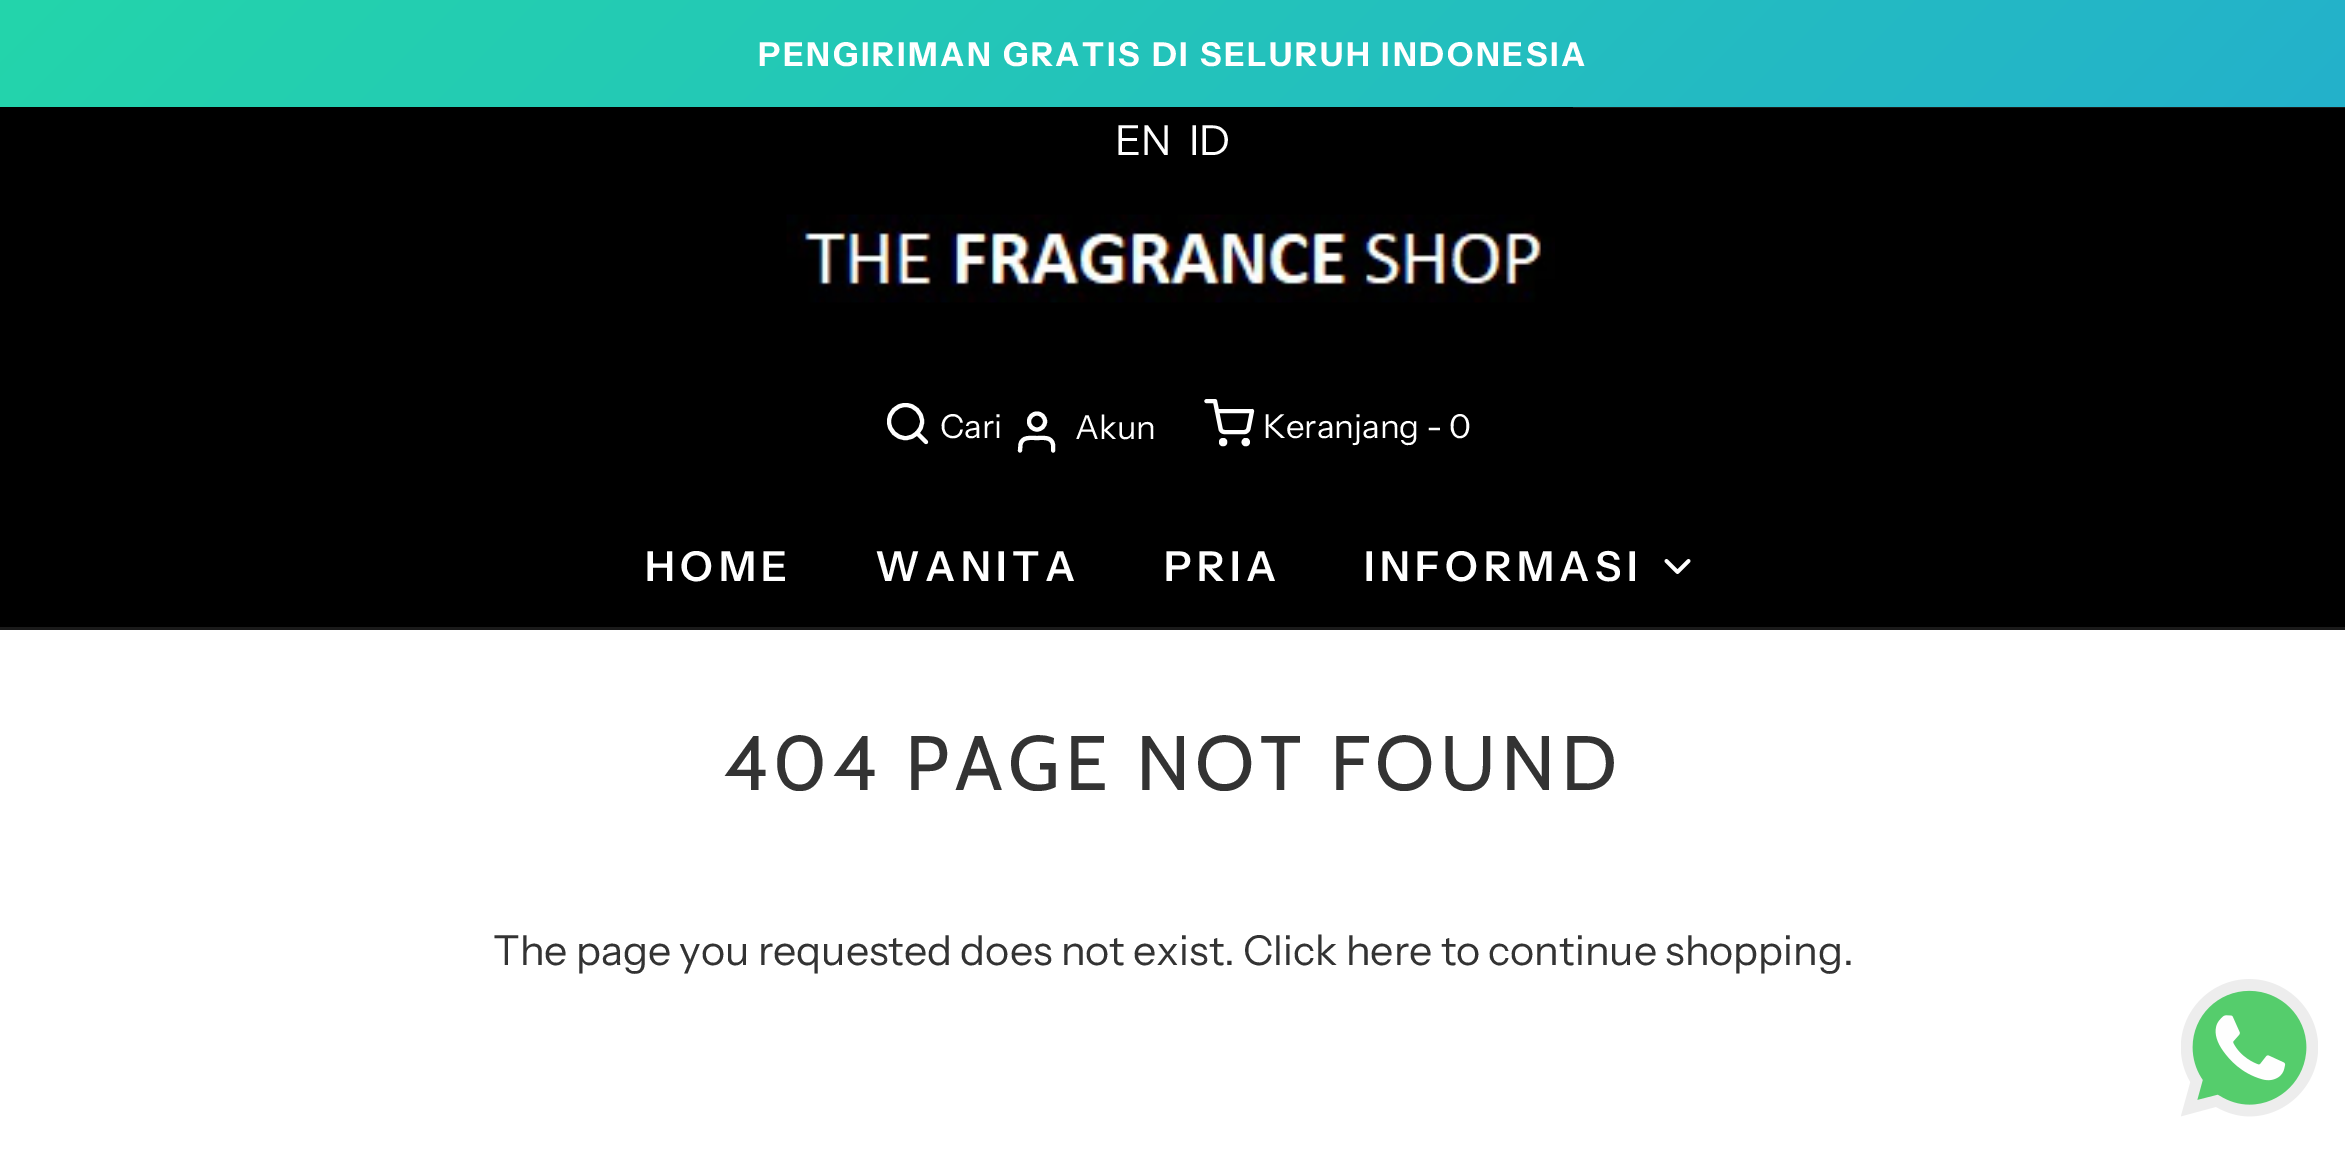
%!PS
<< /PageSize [2345 1156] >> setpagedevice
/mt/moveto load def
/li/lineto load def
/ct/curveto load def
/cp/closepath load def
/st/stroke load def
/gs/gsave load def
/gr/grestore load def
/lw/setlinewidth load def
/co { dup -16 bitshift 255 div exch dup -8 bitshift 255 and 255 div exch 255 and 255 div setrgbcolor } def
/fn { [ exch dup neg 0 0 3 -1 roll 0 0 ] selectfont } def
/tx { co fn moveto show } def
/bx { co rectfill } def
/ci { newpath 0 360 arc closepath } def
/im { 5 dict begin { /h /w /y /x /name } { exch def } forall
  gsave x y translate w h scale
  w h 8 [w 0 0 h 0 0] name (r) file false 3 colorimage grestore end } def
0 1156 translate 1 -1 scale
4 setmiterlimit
0 0 2345 1156 16#FFFFFF bx
gs 0 0 mt 2345 0 li 2345 107 li 0 107 li cp clip newpath
<< /ShadingType 2 /ColorSpace /DeviceRGB /Coords [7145 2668 2239 -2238] /Extend [true true] /Function << /FunctionType 3 /Domain [0 1] /Functions [<< /FunctionType 2 /Domain [0 1] /C0 [.933 .467 .322] /C1 [.906 .235 .494] /N 1 >> << /FunctionType 2 /Domain [0 1] /C0 [.906 .235 .494] /C1 [.137 .651 .835] /N 1 >> << /FunctionType 2 /Domain [0 1] /C0 [.137 .651 .835] /C1 [.137 .835 .671] /N 1 >>] /Bounds [.33 .67] /Encode [0 1 0 1 0 1] >> >> shfill gr
0 107 2345 520 16#000000 bx
1573 107 772 1 16#1A1A1A bx
0 627 2345 3 16#1A1A1A bx
(media/1.raw) 786 214 769 89 im
16#FFFFFF co
4.1 lw
905.5 421.5 16.5 ci st
1 setlinecap
1 setlinejoin
926 442 mt 917 433 li st
1053 450.5 mt 1053 444.5 li 1051.5 436.5 1043 438 1037 438 ct 1030.5 438 1022 436.5 1020.5 444.5 ct 1020 450.5 li st
0 setlinecap
0 setlinejoin
1037 421.5 8 ci st
1223.1 442.1 2.1 ci st
1245.8 442.1 2.1 ci st
gs
1196 399 66 49 rectclip
1 setlinecap
1 setlinejoin
1206.5 401 mt 1215 401 li 1220.5 428.5 li 1220.5 430.5 1222.5 432 1224.5 432 ct 1244.5 432 li 1246.5 432 1248 430.5 1248.5 428.5 ct 1252 411 li 1217 411 li st
gr
3.7 lw
1 setlinecap
1 setlinejoin
1666.5 561 mt 1677.5 572 li 1688.5 561 li st
(media/2.raw) 2181 979 137 138 im
/InstrumentSans-Bold 33 fn
758 66 mt 2.75 0 (PENGIRIMAN GRATIS DI SELURUH INDONESIA) ashow
(EN) 1115 155 /InstrumentSans-Regular 41.25 16#FFFFFF tx
(ID) 1189 155 /InstrumentSans-Regular 41.25 16#FFFFFF tx
(Cari) 940 438 /InstrumentSans-Regular 33 16#FFFFFF tx
(Akun) 1075 439 /InstrumentSans-Regular 33 16#FFFFFF tx
(Keranjang - 0) 1263 438 /InstrumentSans-Regular 33 16#FFFFFF tx
/InstrumentSans-SemiBold 41.25 fn
645 581 mt 5.5 0 (HOME) ashow
875 581 mt 5.5 0 (WANITA) ashow
1164 581 mt 5.5 0 (PRIA) ashow
1364 581 mt 5.5 0 (INFORMASI) ashow
/Cabin-Regular 77 fn
16#333333 co
723 790 mt 5.5 0 (404 PAGE NOT FOUND) ashow
(The page you requested does not exist. Click here to continue shopping.) 493 965 /InstrumentSans-Regular 41.25 16#333333 tx
showpage
